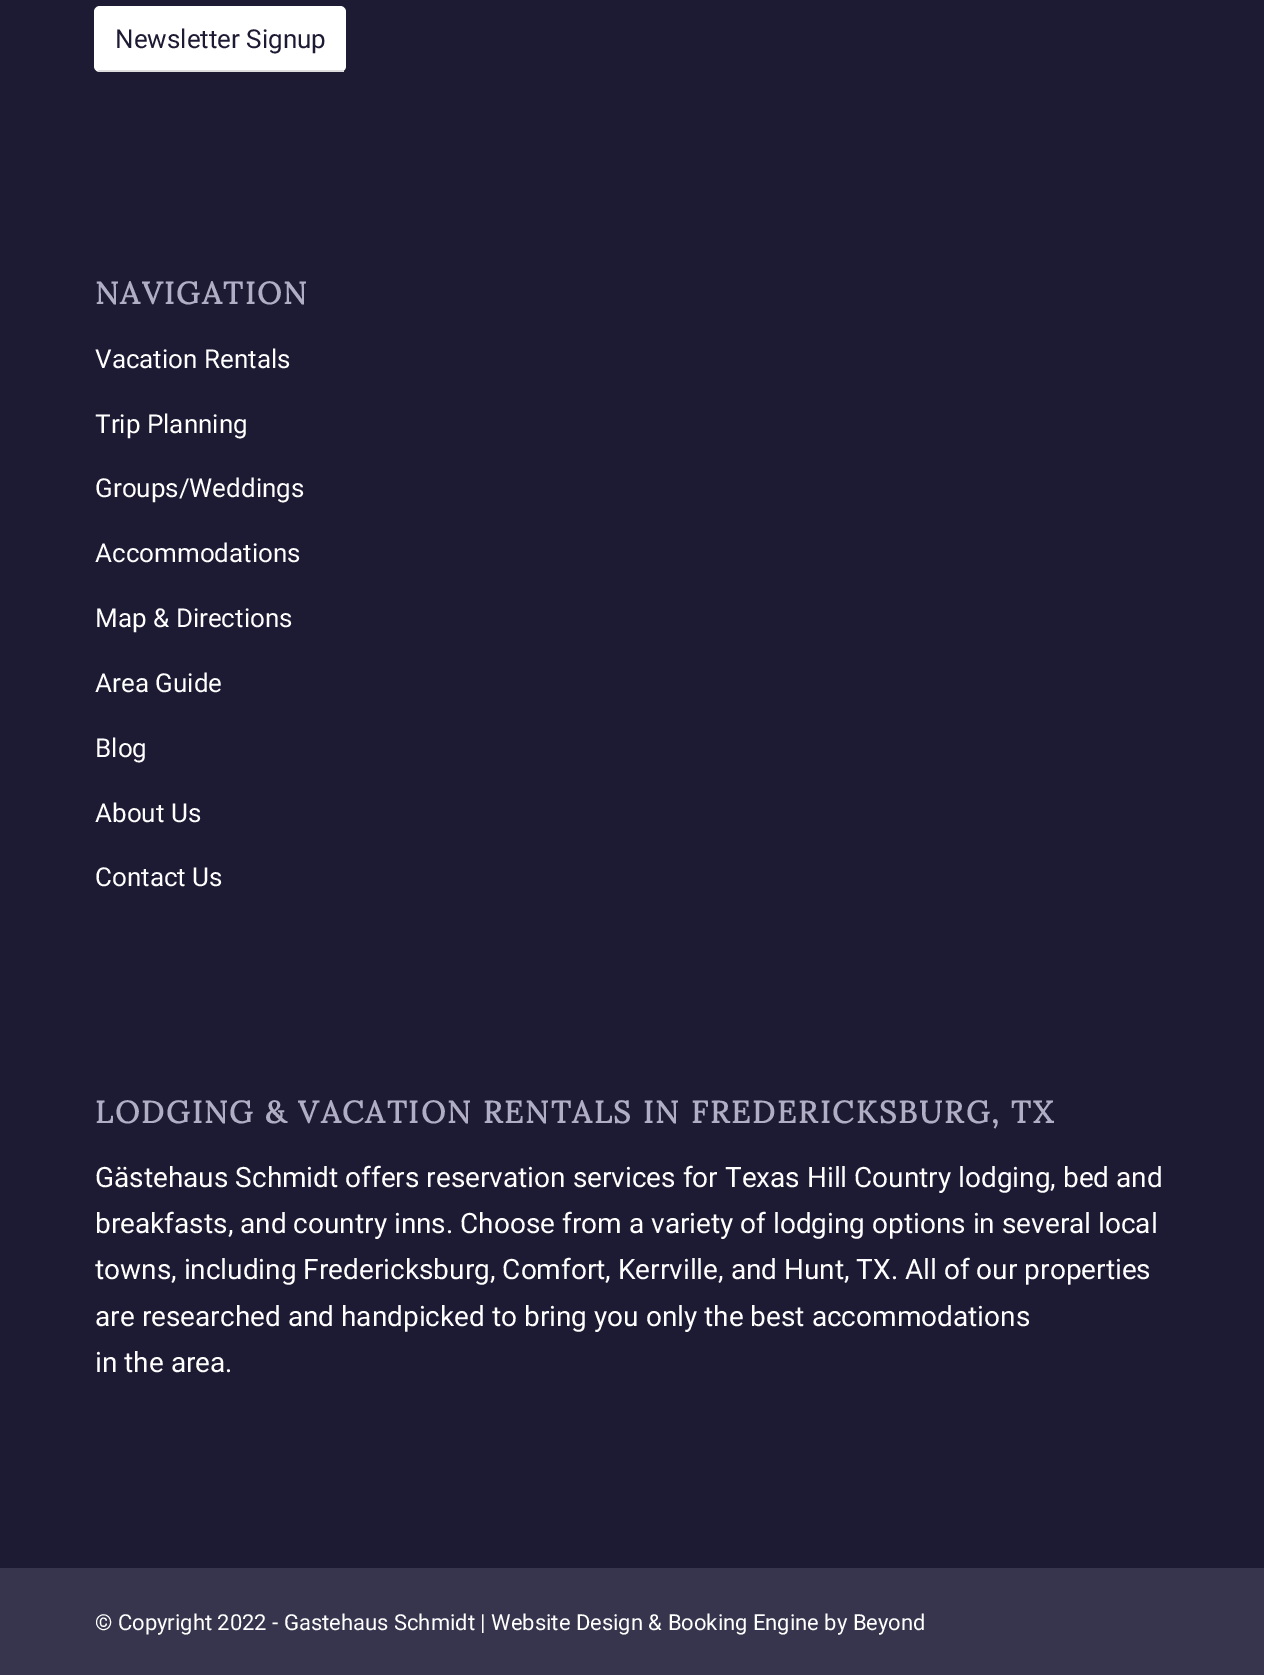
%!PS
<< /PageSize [1264 1675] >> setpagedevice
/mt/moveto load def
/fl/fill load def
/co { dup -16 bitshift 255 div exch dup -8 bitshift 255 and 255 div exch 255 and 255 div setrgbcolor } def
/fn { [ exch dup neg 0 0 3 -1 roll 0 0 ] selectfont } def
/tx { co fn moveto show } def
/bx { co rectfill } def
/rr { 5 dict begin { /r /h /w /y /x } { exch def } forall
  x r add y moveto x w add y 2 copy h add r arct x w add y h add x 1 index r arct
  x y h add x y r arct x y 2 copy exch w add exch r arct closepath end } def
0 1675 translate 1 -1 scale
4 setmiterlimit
0 0 1264 1675 16#1D1A34 bx
16#FFFFFF co
94 6 252 66 6 rr fl
98 70 246 2 16#DDDDDD bx
0 1568 1264 107 16#36354D bx
(Newsletter Signup) 115 48 /Roboto-Regular 26 16#1D1A34 tx
/Lora-Bold 30.8 fn
16#B0AEC5 co
95 304 mt 2 0 (NAVIGATION) ashow
(Vacation Rentals) 95 368 /Roboto-Regular 26 16#FFFFFF tx
(Trip Planning) 95 433 /Roboto-Regular 26 16#FFFFFF tx
(Groups/Weddings) 95 497 /Roboto-Regular 26 16#FFFFFF tx
(Accommodations) 95 562 /Roboto-Regular 26 16#FFFFFF tx
(Map & Directions) 95 627 /Roboto-Regular 26 16#FFFFFF tx
(Area Guide) 95 692 /Roboto-Regular 26 16#FFFFFF tx
(Blog) 95 757 /Roboto-Regular 26 16#FFFFFF tx
(About Us) 95 822 /Roboto-Regular 26 16#FFFFFF tx
(Contact Us) 95 886 /Roboto-Regular 26 16#FFFFFF tx
/Lora-Bold 30.8 fn
16#B0AEC5 co
95 1123 mt 2 0 (LODGING & VACATION RENTALS IN FREDERICKSBURG, TX) ashow
(Gästehaus Schmidt offers reservation services for Texas Hill Country lodging, bed and) 95 1187 /Roboto-Regular 28 16#FFFFFF tx
(breakfasts, and country inns. Choose from a variety of lodging options in several local) 95 1233 /Roboto-Regular 28 16#FFFFFF tx
(towns, including Fredericksburg, Comfort, Kerrville, and Hunt, TX. All of our properties) 95 1279 /Roboto-Regular 28 16#FFFFFF tx
(are researched and handpicked to bring you only the best accommodations) 95 1326 /Roboto-Regular 28 16#FFFFFF tx
(in the area.) 95 1372 /Roboto-Regular 28 16#FFFFFF tx
(© Copyright 2022 - Gastehaus Schmidt | Website Design & Booking Engine by Beyond) 95 1630 /Roboto-Regular 22 16#FFFFFF tx
showpage
